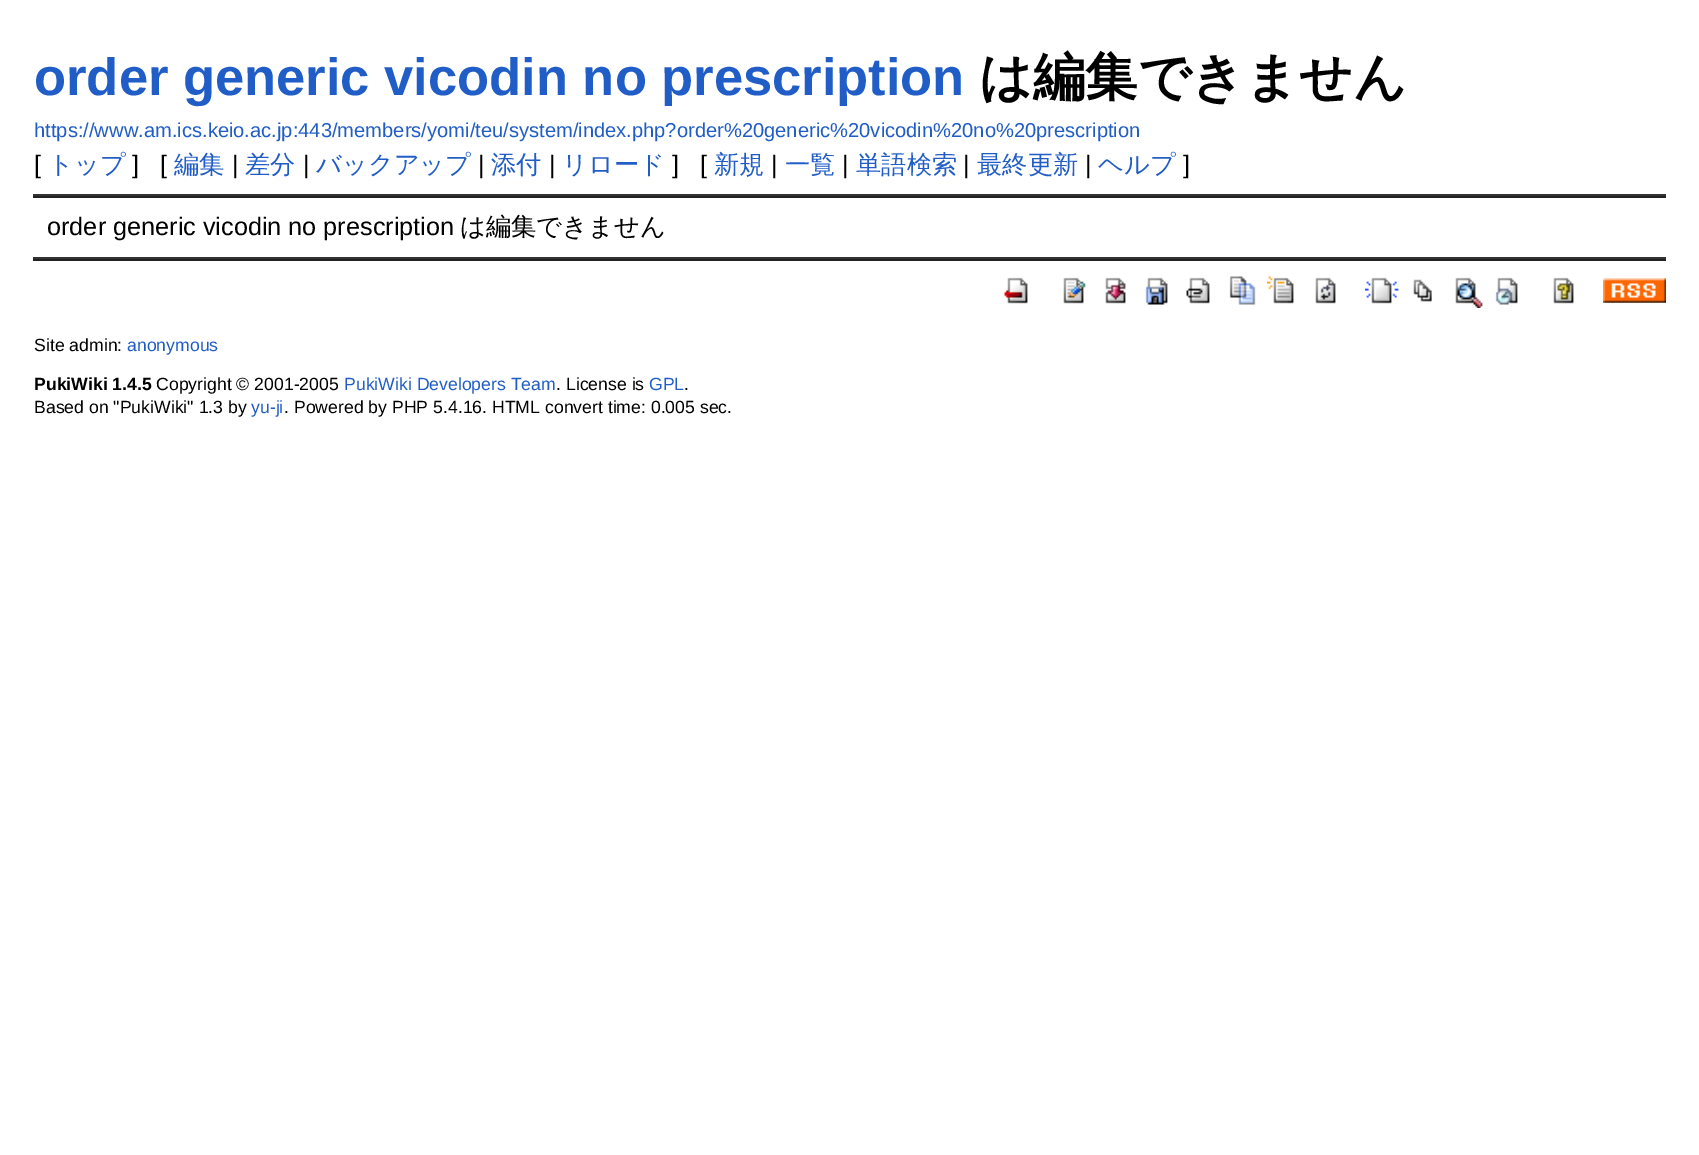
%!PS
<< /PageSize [1699 1155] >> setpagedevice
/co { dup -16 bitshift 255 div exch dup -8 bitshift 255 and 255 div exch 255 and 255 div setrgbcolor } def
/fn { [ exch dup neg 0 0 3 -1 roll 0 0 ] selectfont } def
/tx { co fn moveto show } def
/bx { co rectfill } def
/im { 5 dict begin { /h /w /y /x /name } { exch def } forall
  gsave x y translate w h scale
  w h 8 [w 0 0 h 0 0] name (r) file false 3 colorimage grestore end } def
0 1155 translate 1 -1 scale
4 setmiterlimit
0 0 1699 1155 16#FFFFFF bx
33 194 1633 2 16#333333 bx
33 196 1633 2 16#222222 bx
33 257 1633 2 16#333333 bx
33 259 1633 2 16#222222 bx
(media/1.raw) 1004 277 24 27 im
(media/2.raw) 1063 277 23 27 im
(media/3.raw) 1105 277 21 27 im
(media/4.raw) 1145 277 23 28 im
(media/5.raw) 1186 277 24 27 im
(media/6.raw) 1229 276 27 29 im
(media/7.raw) 1267 276 27 28 im
(media/8.raw) 1315 277 21 27 im
(media/9.raw) 1365 277 34 27 im
(media/10.raw) 1413 279 19 23 im
(media/11.raw) 1455 277 28 31 im
(media/12.raw) 1495 277 23 28 im
(media/13.raw) 1553 277 21 27 im
(media/14.raw) 1603 278 63 25 im
(order generic vicodin no prescription) 34 95 /LiberationSans-Bold 52.5 16#215DC6 tx
(は編集できません) 979 95 /WenQuanYiZenHei-Bold 52.5 16#000000 tx
(https://www.am.ics.keio.ac.jp:443/members/yomi/teu/system/index.php?order%20generic%20vicodin%20no%20prescription) 34 137 /LiberationSans-Regular 20.15 16#215DC6 tx
([) 34 173 /LiberationSans-Regular 25.25 16#000000 tx
(トップ) 48 173 /WenQuanYiZenHei-Medium 25.25 16#215DC6 tx
(]) 132 173 /LiberationSans-Regular 25.25 16#000000 tx
([) 160 173 /LiberationSans-Regular 25.25 16#000000 tx
(編集) 174 173 /WenQuanYiZenHei-Medium 25.25 16#215DC6 tx
(|) 232 173 /LiberationSans-Regular 25.25 16#000000 tx
(差分) 245 173 /WenQuanYiZenHei-Medium 25.25 16#215DC6 tx
(|) 303 173 /LiberationSans-Regular 25.25 16#000000 tx
(バックアップ) 316 173 /WenQuanYiZenHei-Medium 25.25 16#215DC6 tx
(|) 478 173 /LiberationSans-Regular 25.25 16#000000 tx
(添付) 491 173 /WenQuanYiZenHei-Medium 25.25 16#215DC6 tx
(|) 549 173 /LiberationSans-Regular 25.25 16#000000 tx
(リロード) 562 173 /WenQuanYiZenHei-Medium 25.25 16#215DC6 tx
(]) 672 173 /LiberationSans-Regular 25.25 16#000000 tx
([) 700 173 /LiberationSans-Regular 25.25 16#000000 tx
(新規) 714 173 /WenQuanYiZenHei-Medium 25.25 16#215DC6 tx
(|) 771 173 /LiberationSans-Regular 25.25 16#000000 tx
(一覧) 785 173 /WenQuanYiZenHei-Medium 25.25 16#215DC6 tx
(|) 842 173 /LiberationSans-Regular 25.25 16#000000 tx
(単語検索) 856 173 /WenQuanYiZenHei-Medium 25.25 16#215DC6 tx
(|) 963 173 /LiberationSans-Regular 25.25 16#000000 tx
(最終更新) 977 173 /WenQuanYiZenHei-Medium 25.25 16#215DC6 tx
(|) 1085 173 /LiberationSans-Regular 25.25 16#000000 tx
(ヘルプ) 1098 173 /WenQuanYiZenHei-Medium 25.25 16#215DC6 tx
(]) 1183 173 /LiberationSans-Regular 25.25 16#000000 tx
(order generic vicodin no prescription) 47 235 /LiberationSans-Regular 25.25 16#000000 tx
(は編集できません) 460 235 /WenQuanYiZenHei-Medium 25.25 16#000000 tx
(Site admin:) 34 351 /LiberationSans-Regular 17.65 16#000000 tx
(anonymous) 127 351 /LiberationSans-Regular 17.65 16#215DC6 tx
(PukiWiki 1.4.5) 34 390 /LiberationSans-Bold 17.65 16#000000 tx
(Copyright © 2001-2005) 156 390 /LiberationSans-Regular 17.65 16#000000 tx
(PukiWiki Developers Team) 344 390 /LiberationSans-Regular 17.65 16#215DC6 tx
(. License is) 556 390 /LiberationSans-Regular 17.65 16#000000 tx
(GPL) 649 390 /LiberationSans-Regular 17.65 16#215DC6 tx
(.) 684 390 /LiberationSans-Regular 17.65 16#000000 tx
(Based on "PukiWiki" 1.3 by) 34 413 /LiberationSans-Regular 17.65 16#000000 tx
(yu-ji) 251 413 /LiberationSans-Regular 17.65 16#215DC6 tx
(. Powered by PHP 5.4.16. HTML convert time: 0.005 sec.) 284 413 /LiberationSans-Regular 17.65 16#000000 tx
showpage
